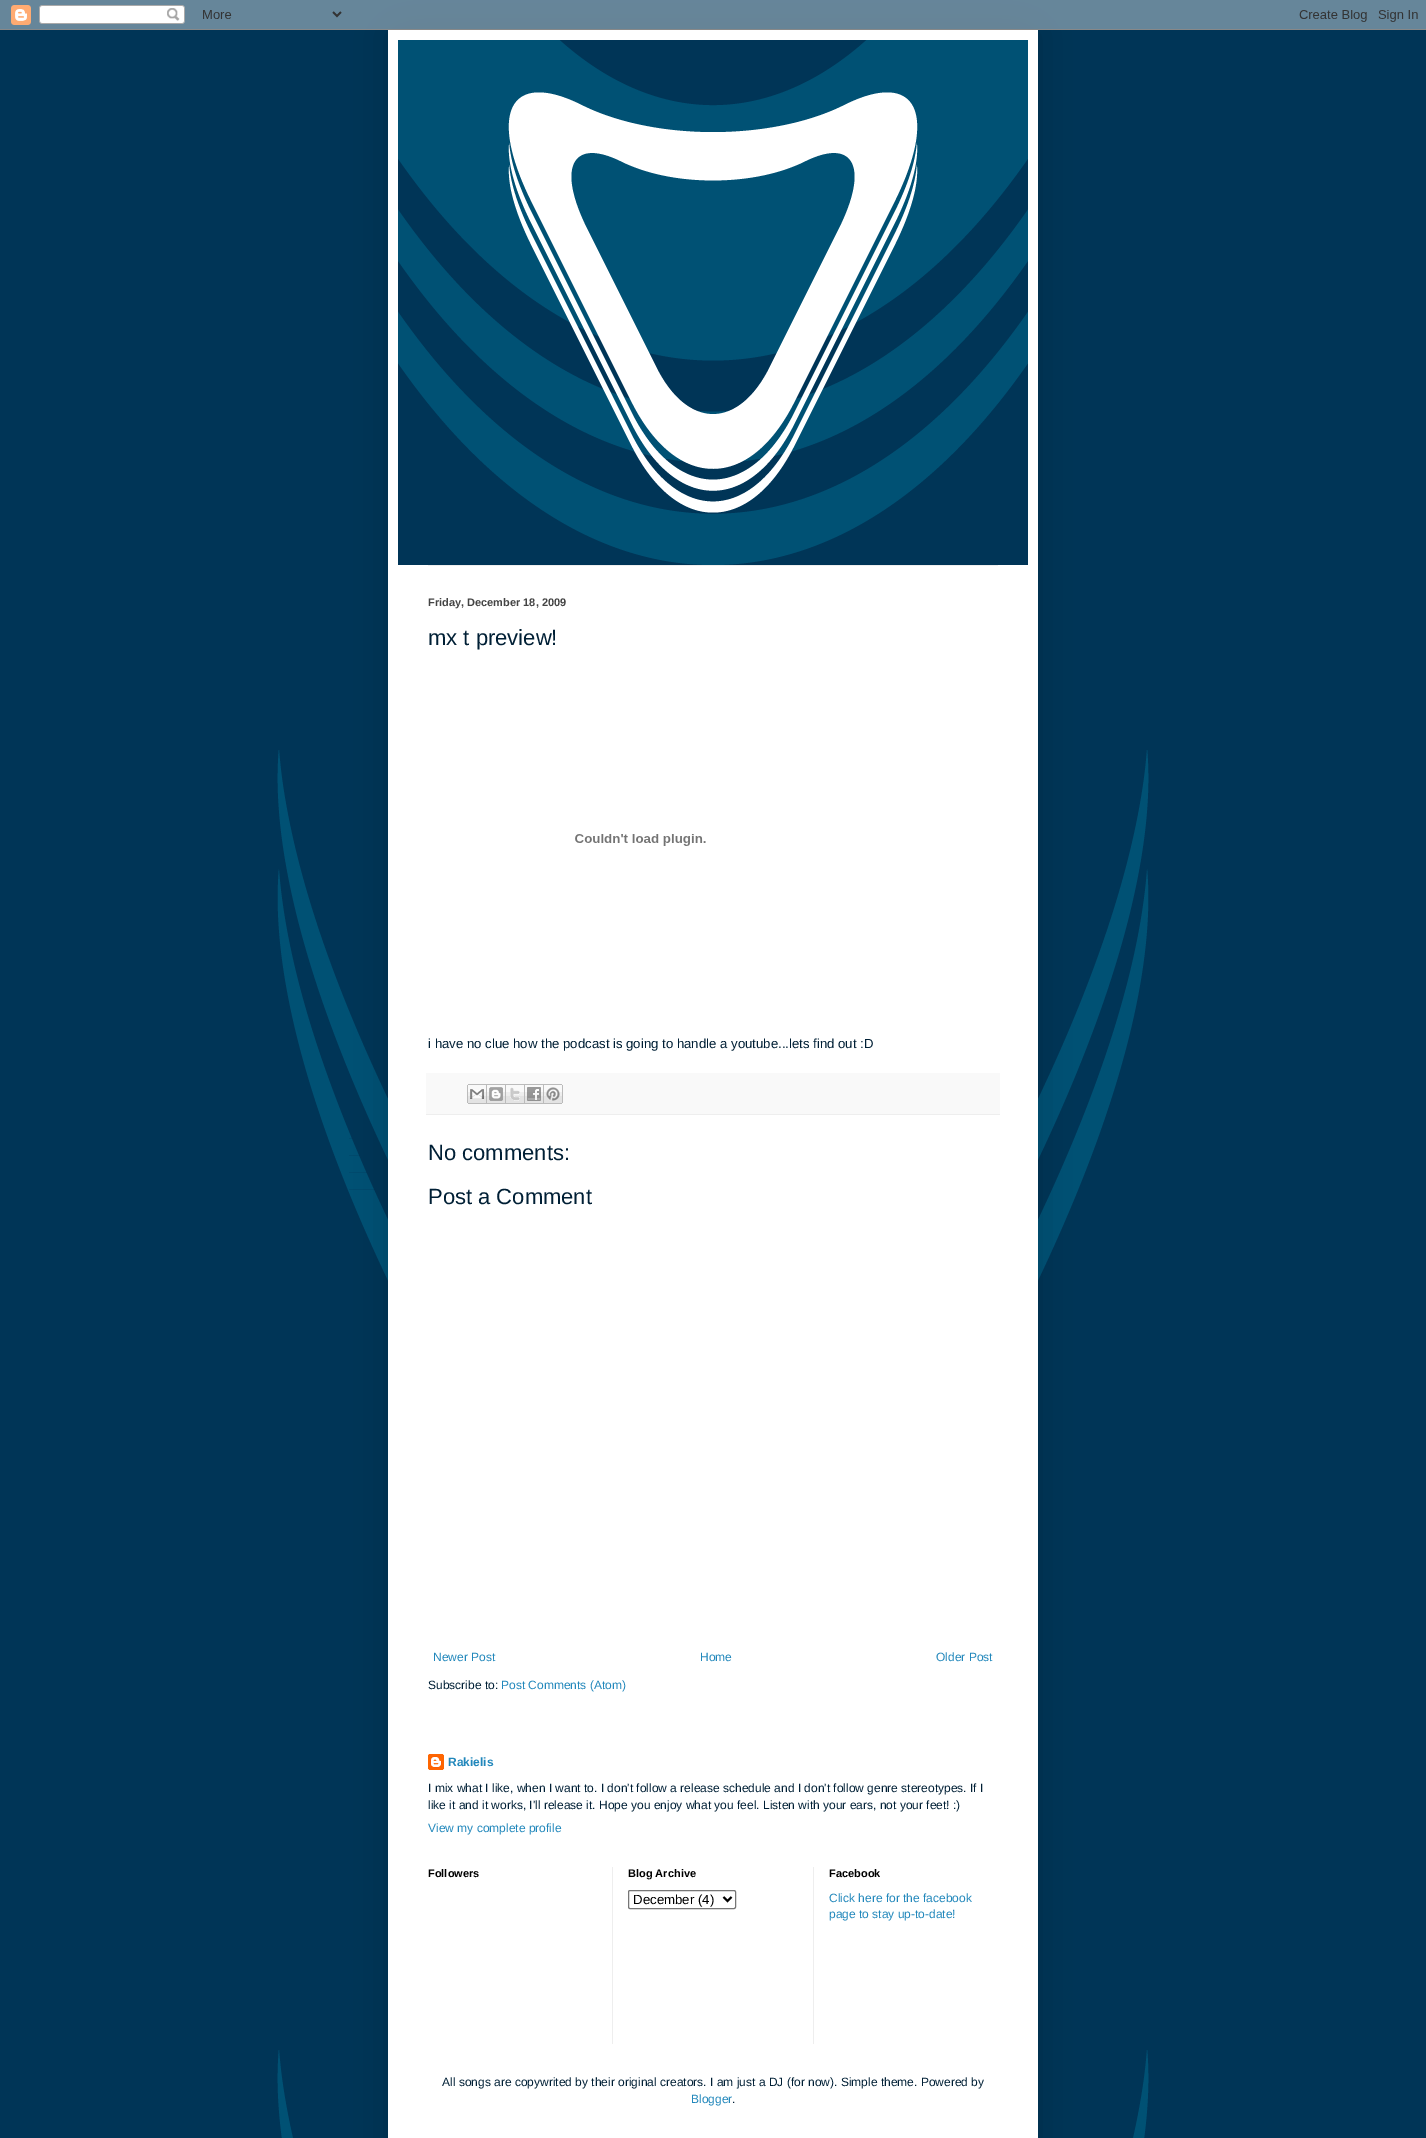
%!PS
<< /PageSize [1426 2138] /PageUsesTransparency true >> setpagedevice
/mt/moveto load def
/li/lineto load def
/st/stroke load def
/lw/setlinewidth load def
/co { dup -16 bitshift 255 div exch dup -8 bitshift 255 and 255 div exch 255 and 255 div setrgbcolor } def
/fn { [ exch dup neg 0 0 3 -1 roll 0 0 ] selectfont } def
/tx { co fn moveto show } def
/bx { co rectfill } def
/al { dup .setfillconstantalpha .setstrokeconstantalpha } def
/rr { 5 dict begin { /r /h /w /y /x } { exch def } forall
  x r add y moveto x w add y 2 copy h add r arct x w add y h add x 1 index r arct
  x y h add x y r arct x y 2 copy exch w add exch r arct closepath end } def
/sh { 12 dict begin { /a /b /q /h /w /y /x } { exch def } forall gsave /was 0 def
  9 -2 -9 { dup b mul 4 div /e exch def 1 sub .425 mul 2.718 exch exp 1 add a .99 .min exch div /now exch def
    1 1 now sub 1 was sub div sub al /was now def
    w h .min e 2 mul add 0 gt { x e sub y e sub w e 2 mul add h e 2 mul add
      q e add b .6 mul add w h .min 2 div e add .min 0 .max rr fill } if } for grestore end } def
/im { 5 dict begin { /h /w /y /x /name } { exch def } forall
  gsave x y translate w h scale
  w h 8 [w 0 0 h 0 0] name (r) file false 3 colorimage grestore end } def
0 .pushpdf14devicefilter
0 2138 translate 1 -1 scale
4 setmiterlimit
0 0 1426 2138 16#003557 bx
(media/1.raw) 277 750 872 1388 im
16#000000 co
388 30 650 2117 0 20 .15 sh
(media/2.raw) 0 0 1426 30 im
388 30 650 2108 16#FFFFFF bx
(media/3.raw) 398 40 630 525 im
428 565 570 1 16#EEEEEE bx
(media/4.raw) 575 834 131 12 im
426 1073 574 41 16#F9F9F9 bx
426 1114 574 1 16#EEEEEE bx
(media/5.raw) 467 1084 20 20 im
(media/6.raw) 487 1084 19 20 im
(media/7.raw) 506 1084 19 20 im
(media/8.raw) 525 1084 19 20 im
(media/9.raw) 544 1084 19 20 im
(media/10.raw) 428 1754 16 16 im
612 1867 1 177 16#EEEEEE bx
16#767676 co
628.5 1890.5 107 18 1.5 rr st
16#000000 co
2 lw
723.5 1897 mt 727.5 1901 li 731.5 1897 li st
813 1867 1 177 16#EEEEEE bx
(Friday, December 18, 2009) 428 606 /LiberationSans-Bold 11 16#444444 tx
(mx t preview!) 428 645 /LiberationSans-Regular 22 16#001F35 tx
(i have no clue how the podcast is going to handle a youtube...lets find out :D) 428 1048 /LiberationSans-Regular 13.2 16#001F35 tx
(No comments:) 428 1160 /LiberationSans-Regular 22 16#001F35 tx
(Post a Comment) 428 1204 /LiberationSans-Regular 22 16#001F35 tx
(Newer Post) 433 1661 /LiberationSans-Regular 12 16#2187BB tx
(Home) 700 1661 /LiberationSans-Regular 12 16#2187BB tx
(Older Post) 936 1661 /LiberationSans-Regular 12 16#2187BB tx
(Subscribe to:) 428 1689 /LiberationSans-Regular 12 16#001F35 tx
(Post Comments \(Atom\)) 501 1689 /LiberationSans-Regular 12 16#2187BB tx
(Rakielis) 448 1766 /LiberationSans-Bold 12 16#2187BB tx
(I mix what I like, when I want to. I don't follow a release schedule and I don't follow genre stereotypes. If I) 428 1792 /LiberationSans-Regular 12 16#001F35 tx
(like it and it works, I'll release it. Hope you enjoy what you feel. Listen with your ears, not your feet! :\)) 428 1809 /LiberationSans-Regular 12 16#001F35 tx
(View my complete profile) 428 1832 /LiberationSans-Regular 12 16#2187BB tx
(Followers) 428 1877 /LiberationSans-Bold 11 16#000000 tx
(Blog Archive) 628 1877 /LiberationSans-Bold 11 16#000000 tx
(December \(4\)) 633 1904 /LiberationSans-Regular 13.25 16#000000 tx
(Facebook) 829 1877 /LiberationSans-Bold 11 16#000000 tx
(Click here for the facebook) 829 1902 /LiberationSans-Regular 12 16#2187BB tx
(page to stay up-to-date!) 829 1918 /LiberationSans-Regular 12 16#2187BB tx
(All songs are copywrited by their original creators. I am just a DJ \(for now\). Simple theme. Powered by) 442 2086 /LiberationSans-Regular 12 16#001F35 tx
(Blogger) 691 2103 /LiberationSans-Regular 12 16#2187BB tx
(.) 732 2103 /LiberationSans-Regular 12 16#001F35 tx
.poppdf14devicefilter showpage
